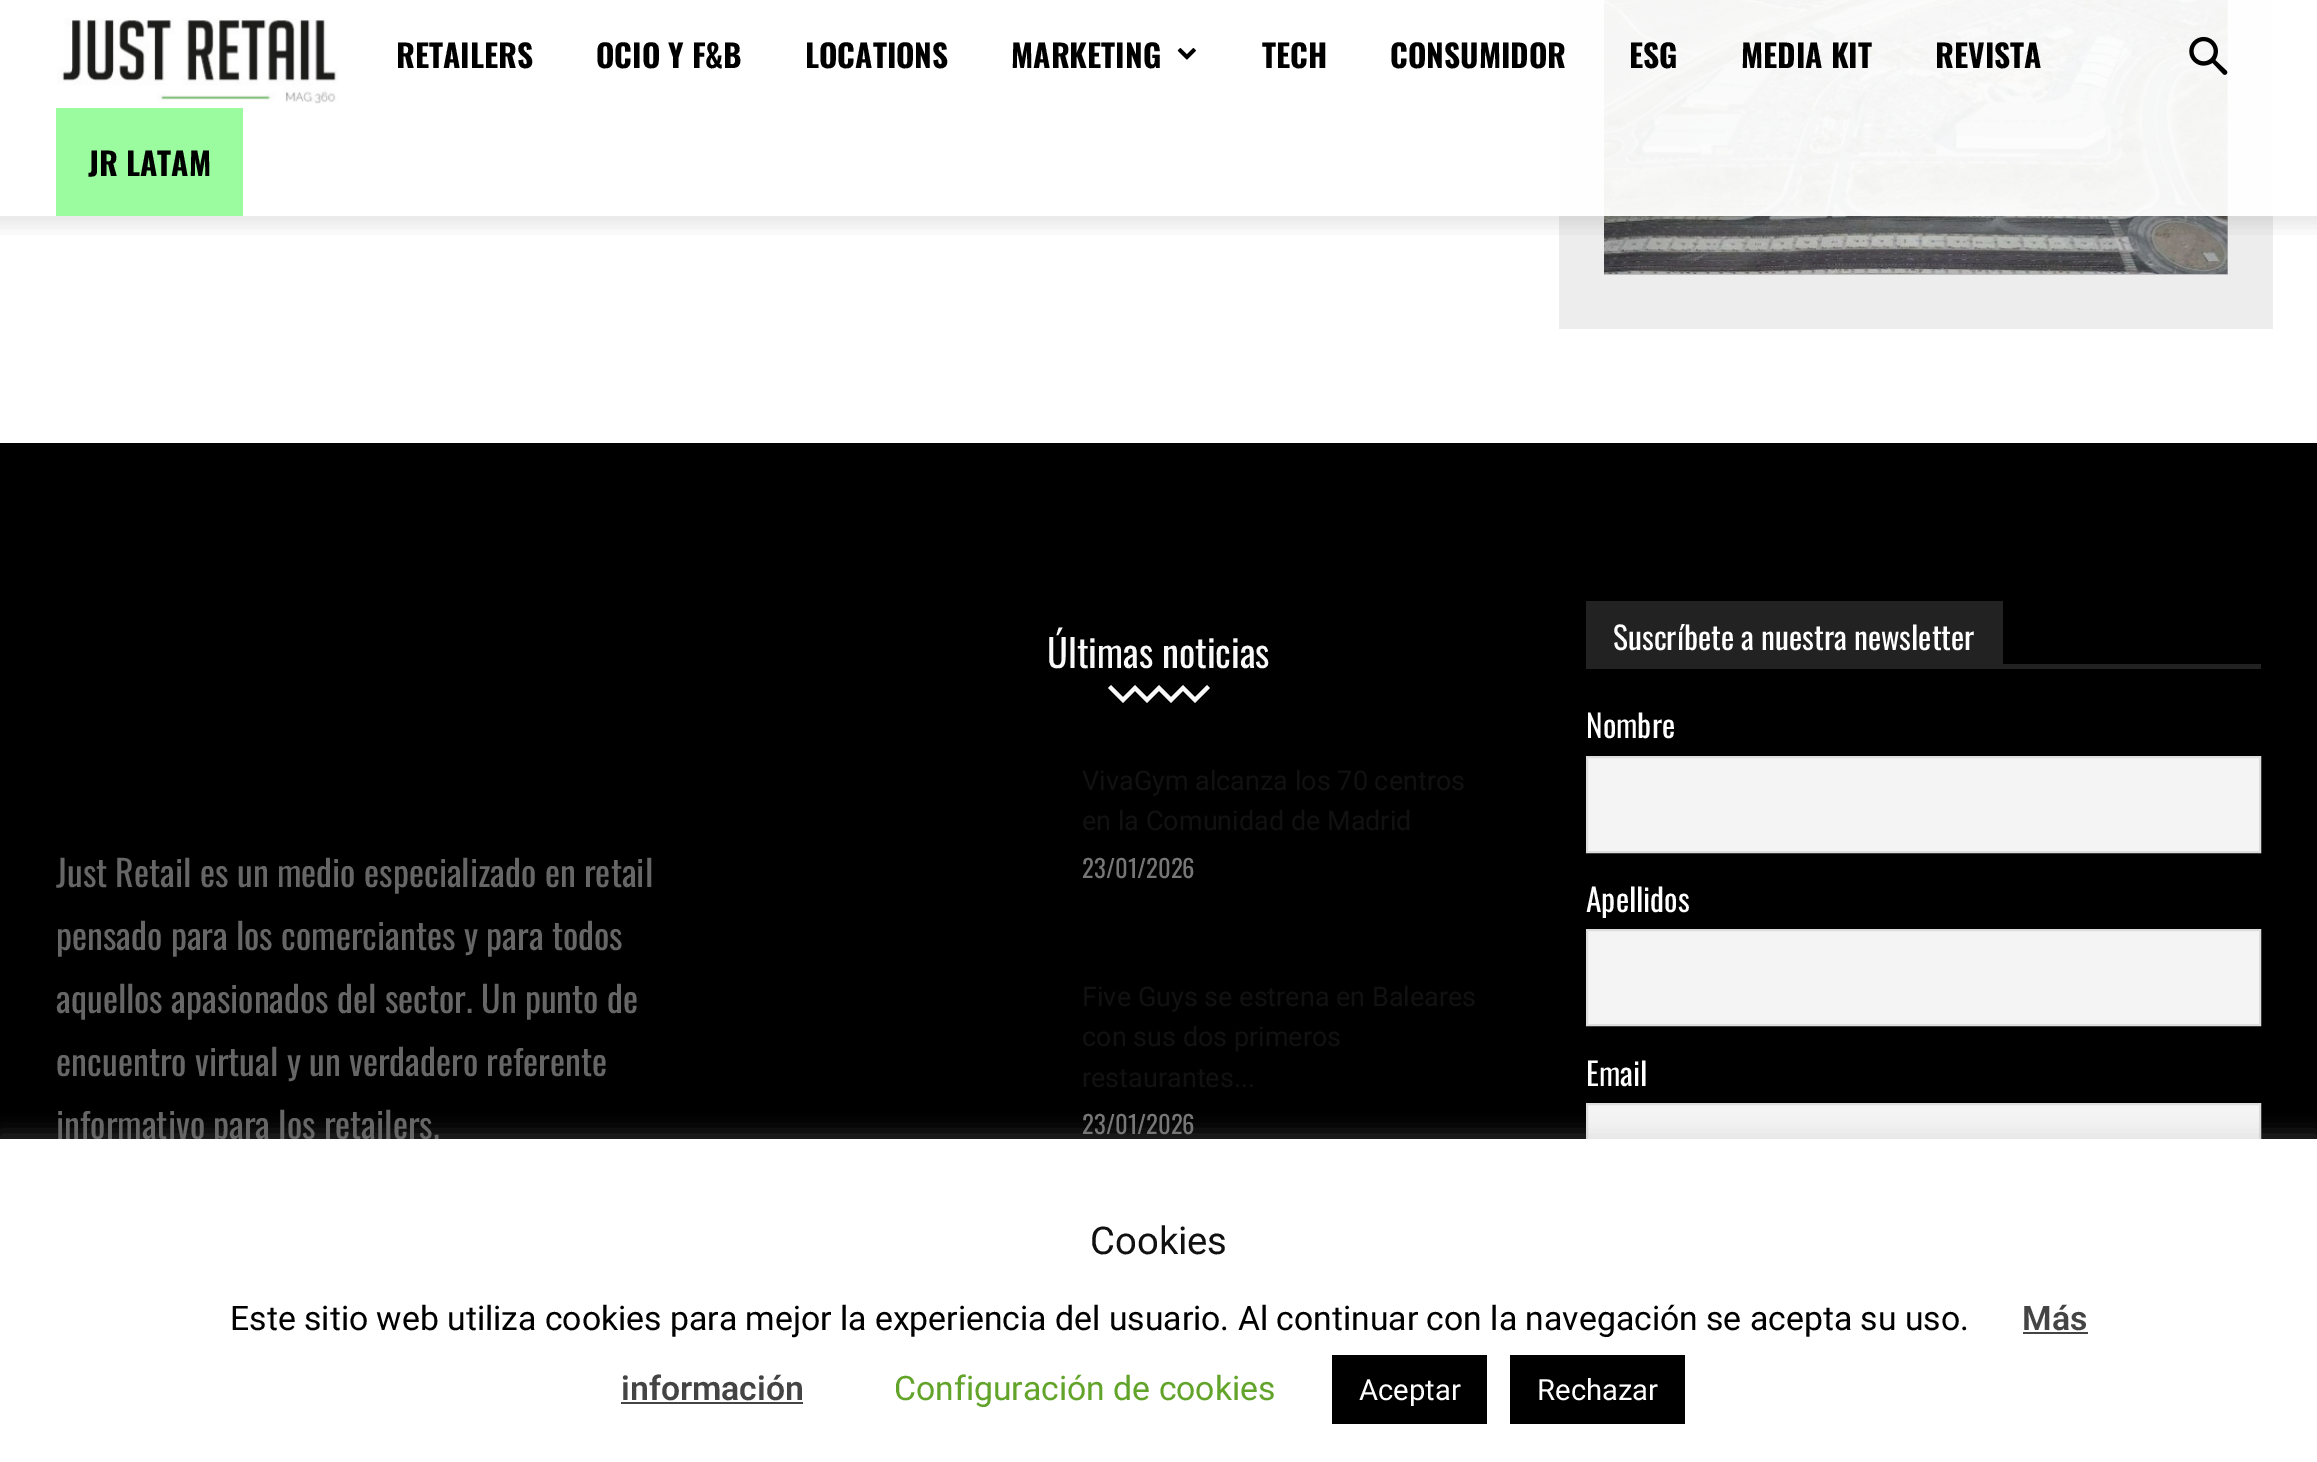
%!PS
<< /PageSize [2317 1462] /PageUsesTransparency true >> setpagedevice
/mt/moveto load def
/li/lineto load def
/cp/closepath load def
/fl/fill load def
/st/stroke load def
/gs/gsave load def
/gr/grestore load def
/lw/setlinewidth load def
/co { dup -16 bitshift 255 div exch dup -8 bitshift 255 and 255 div exch 255 and 255 div setrgbcolor } def
/fn { [ exch dup neg 0 0 3 -1 roll 0 0 ] selectfont } def
/tx { co fn moveto show } def
/bx { co rectfill } def
/al { dup .setfillconstantalpha .setstrokeconstantalpha } def
/rr { 5 dict begin { /r /h /w /y /x } { exch def } forall
  x r add y moveto x w add y 2 copy h add r arct x w add y h add x 1 index r arct
  x y h add x y r arct x y 2 copy exch w add exch r arct closepath end } def
/sh { 12 dict begin { /a /b /q /h /w /y /x } { exch def } forall gsave /was 0 def
  9 -2 -9 { dup b mul 4 div /e exch def 1 sub .425 mul 2.718 exch exp 1 add a .99 .min exch div /now exch def
    1 1 now sub 1 was sub div sub al /was now def
    w h .min e 2 mul add 0 gt { x e sub y e sub w e 2 mul add h e 2 mul add
      q e add b .6 mul add w h .min 2 div e add .min 0 .max rr fill } if } for grestore end } def
/im { 5 dict begin { /h /w /y /x /name } { exch def } forall
  gsave x y translate w h scale
  w h 8 [w 0 0 h 0 0] name (r) file false 3 colorimage grestore end } def
0 .pushpdf14devicefilter
0 1462 translate 1 -1 scale
4 setmiterlimit
0 0 2317 1462 16#FFFFFF bx
1559 0 714 329 16#EDEDED bx
1604 0 624 275 16#BEBEBE bx
(media/1.raw) 1604 0 624 274 im
0.95 al
1559 0 714 216 16#FFFFFF bx
1 al
(media/2.raw) 57 18 281 86 im
(media/3.raw) 1177 48 19 12 im
56 108 187 108 16#9AFC9F bx
(media/4.raw) 2189 36 39 39 im
(media/5.raw) 0 216 2317 19 im
0 443 2317 696 16#000000 bx
16#F9F9F9 co
1210 688 mt 1195 703 li 1183 691 li 1171 703 li 1159 691 li 1147 703 li 1135 691 li 1123 703 li 1108 688 li 1111 685 li 1123 697 li 1135 685 li 1147 697 li 1159 685 li 1171 697 li 1183 685 li 1195 697 li 1207 685 li cp fl
1586 664 675 5 16#222222 bx
1586 601 417 63 16#222222 bx
16#F4F4F4 co
1587 757 mt 2260 757 li 2260 852 li 1587 852 li cp gs fl gr
16#DDDDDD co
2 lw
st
16#F4F4F4 co
1587 930 mt 2260 930 li 2260 1025 li 1587 1025 li cp gs fl gr
16#DDDDDD co
st
1588 1105 671 34 16#F4F4F4 bx
16#DDDDDD co
1587 1104 673 94 rectstroke
16#ACABAB co
0 1136 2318 324 0 11 .3 sh
(RETAILERS) 396 68 /Oswald-Bold 31.5 16#000000 tx
(OCIO Y F&B) 596 68 /Oswald-Bold 31.5 16#000000 tx
(LOCATIONS) 805 68 /Oswald-Bold 31.5 16#000000 tx
(MARKETING) 1011 68 /Oswald-Bold 31.5 16#000000 tx
(TECH) 1262 68 /Oswald-Bold 31.5 16#000000 tx
(CONSUMIDOR) 1390 68 /Oswald-Bold 31.5 16#000000 tx
(ESG) 1629 68 /Oswald-Bold 31.5 16#000000 tx
(MEDIA KIT) 1741 68 /Oswald-Bold 31.5 16#000000 tx
(REVISTA) 1935 68 /Oswald-Bold 31.5 16#000000 tx
(JR LATAM) 88 176 /Oswald-Bold 31.5 16#000000 tx
(Just Retail es un medio especializado en retail) 56 887 /Oswald-Regular 36 16#666666 tx
(pensado para los comerciantes y para todos) 56 950 /Oswald-Regular 36 16#666666 tx
(aquellos apasionados del sector. Un punto de) 56 1013 /Oswald-Regular 36 16#666666 tx
(encuentro virtual y un verdadero referente) 56 1076 /Oswald-Regular 36 16#666666 tx
(informativo para los retailers.) 56 1139 /Oswald-Regular 36 16#666666 tx
(Últimas noticias) 1047 668 /Oswald-Regular 38.25 16#F9F9F9 tx
(VivaGym alcanza los 70 centros) 1082 790 /Roboto-Regular 27 16#111111 tx
(en la Comunidad de Madrid) 1082 830 /Roboto-Regular 27 16#111111 tx
(23/01/2026) 1082 878 /Oswald-Regular 24.75 16#767676 tx
(Five Guys se estrena en Baleares) 1082 1006 /Roboto-Regular 27 16#111111 tx
(con sus dos primeros) 1082 1046 /Roboto-Regular 27 16#111111 tx
(restaurantes...) 1082 1087 /Roboto-Regular 27 16#111111 tx
(23/01/2026) 1082 1134 /Oswald-Regular 24.75 16#767676 tx
(Suscríbete a nuestra newsletter) 1613 650 /Oswald-Regular 31.5 16#FFFFFF tx
(Nombre) 1586 738 /Oswald-Regular 31.5 16#FFFFFF tx
(Apellidos) 1586 912 /Oswald-Regular 31.5 16#FFFFFF tx
(Email) 1586 1086 /Oswald-Regular 31.5 16#FFFFFF tx
0 1139 2317 323 16#FFFFFF bx
(Cookies) 1090 1254 /Roboto-Regular 38.25 16#111111 tx
(Este sitio web utiliza cookies para mejor la experiencia del usuario. Al continuar con la navegación se acepta su uso.) 230 1330 /Roboto-Regular 33.75 16#000000 tx
(Más) 2022 1330 /Roboto-SemiBold 33.75 16#444444 tx
2023 1332 65 2 16#444444 bx
(información) 621 1400 /Roboto-SemiBold 33.75 16#444444 tx
621 1402 182 2 16#444444 bx
(Configuración de cookies) 894 1400 /Roboto-Regular 33.75 16#62A329 tx
1332 1355 155 69 16#000000 bx
(Aceptar) 1359 1400 /Roboto-Regular 29.25 16#FFFFFF tx
1510 1355 175 69 16#000000 bx
(Rechazar) 1537 1400 /Roboto-Regular 29.25 16#FFFFFF tx
.poppdf14devicefilter showpage
